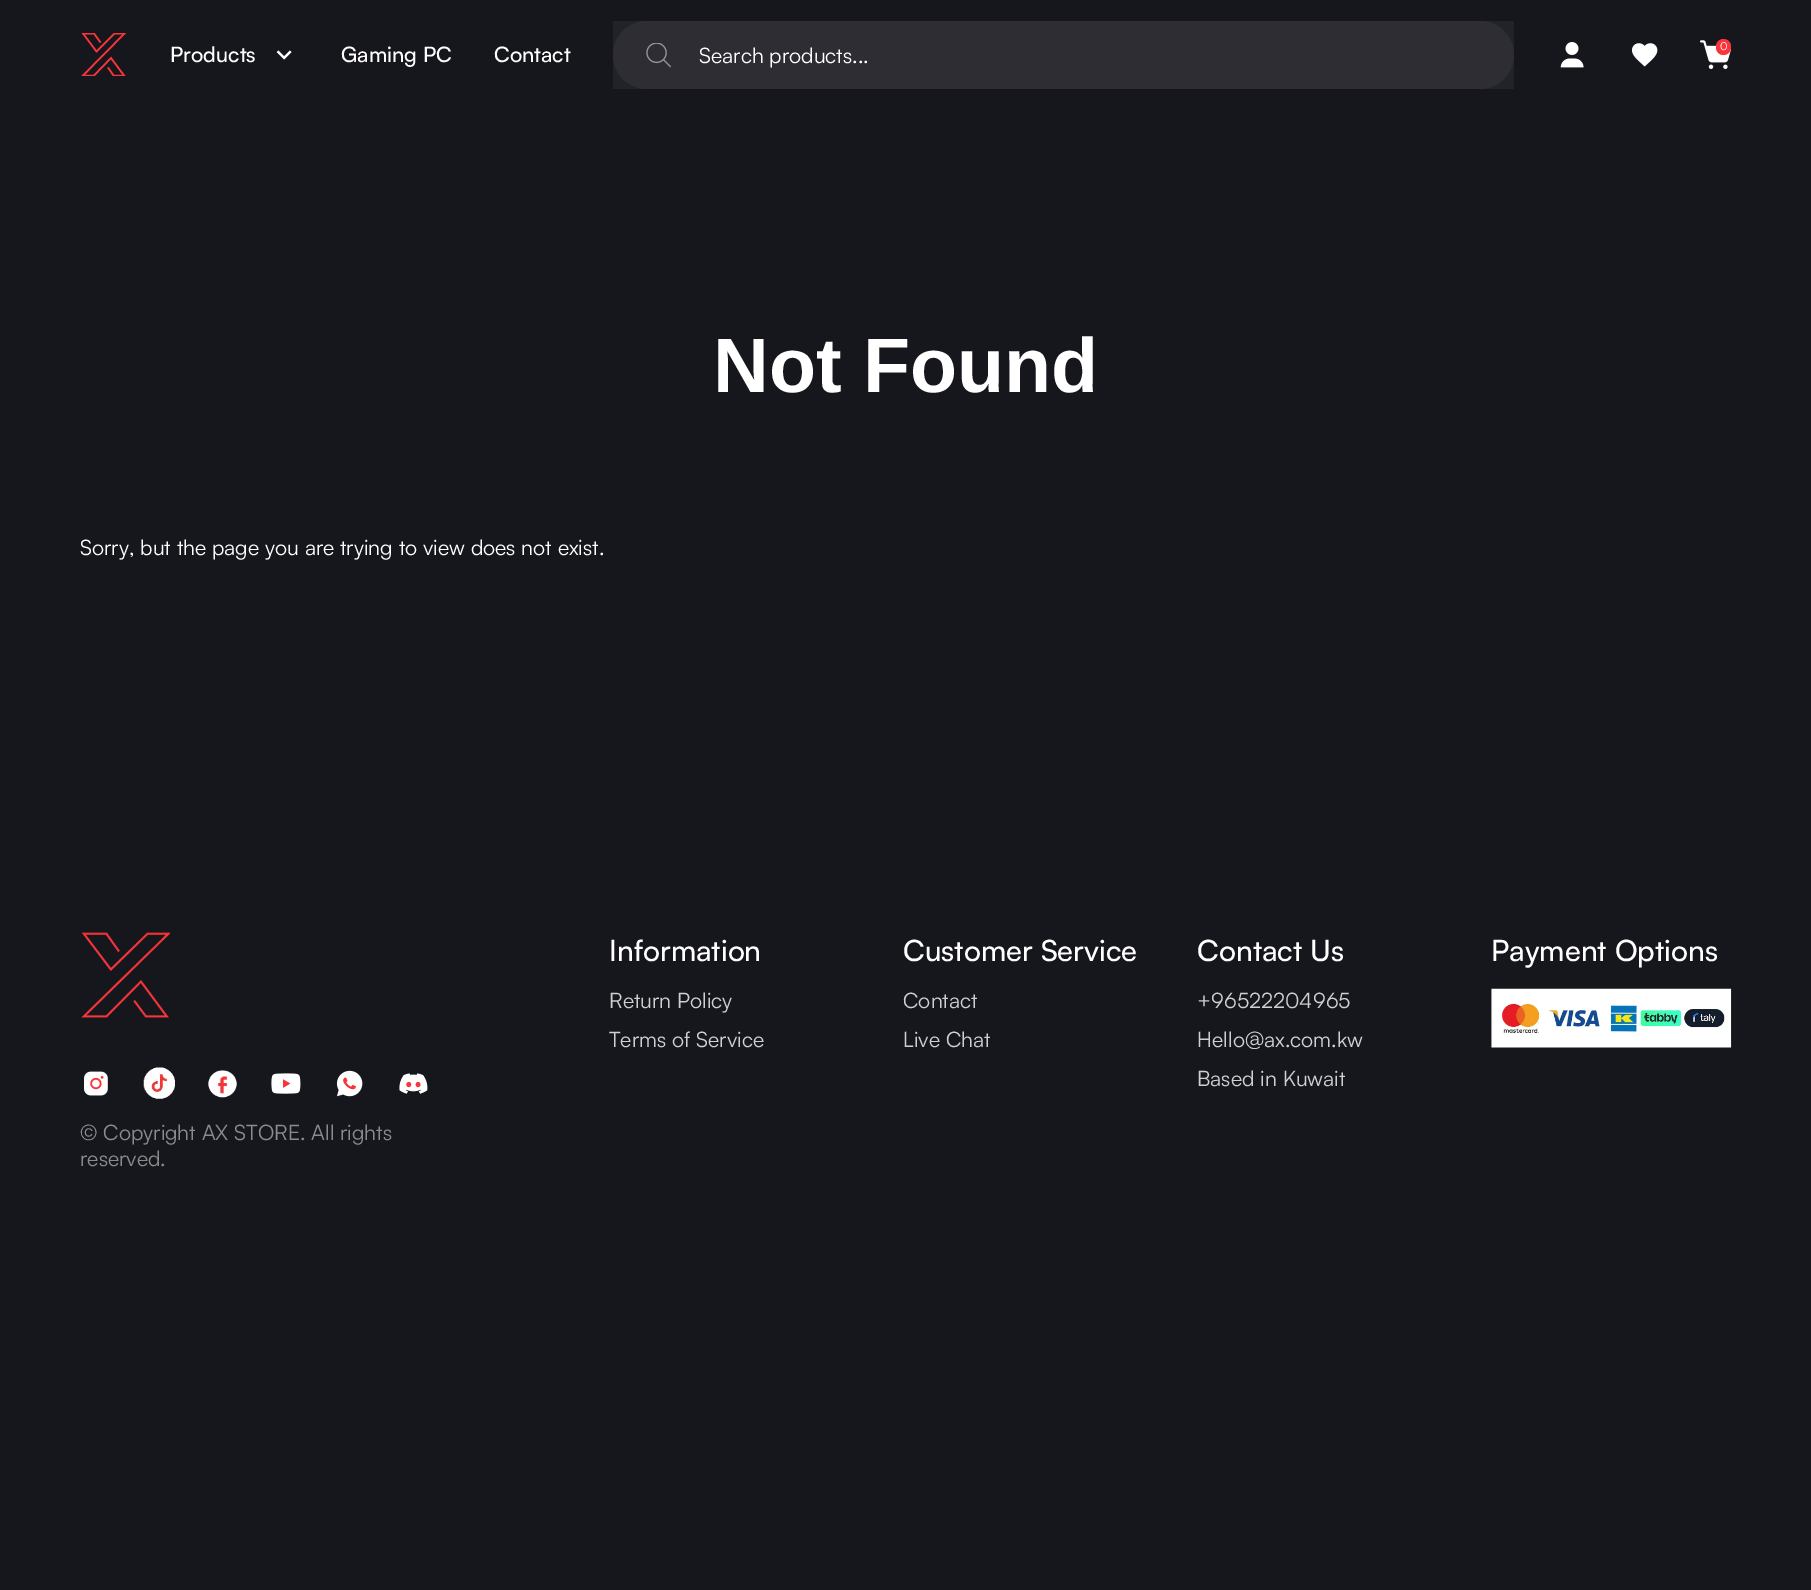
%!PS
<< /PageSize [1811 1590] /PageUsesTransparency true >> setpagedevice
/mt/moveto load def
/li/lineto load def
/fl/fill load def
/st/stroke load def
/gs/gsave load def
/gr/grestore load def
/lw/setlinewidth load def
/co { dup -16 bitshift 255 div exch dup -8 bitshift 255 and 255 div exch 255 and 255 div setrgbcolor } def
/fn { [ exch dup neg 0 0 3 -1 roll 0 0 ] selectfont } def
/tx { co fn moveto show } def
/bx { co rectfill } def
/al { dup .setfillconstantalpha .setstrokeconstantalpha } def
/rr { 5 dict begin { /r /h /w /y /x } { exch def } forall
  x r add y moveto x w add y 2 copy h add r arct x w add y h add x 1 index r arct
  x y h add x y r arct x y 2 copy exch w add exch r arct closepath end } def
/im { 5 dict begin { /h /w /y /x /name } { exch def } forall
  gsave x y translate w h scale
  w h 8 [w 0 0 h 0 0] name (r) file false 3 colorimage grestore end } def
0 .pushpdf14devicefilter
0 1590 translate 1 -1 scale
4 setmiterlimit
0 0 1811 1590 16#16161D bx
gs
81 33 46 43 rectclip
16#F8353A co
1.6 lw
100.5 42.5 mt 94 33.5 li 83 33.5 li 96.5 51.5 li 114.5 33.5 li 124.5 33.5 li 83 75.5 li 94 75.5 li 111 58 li 124 75.5 li 113.5 75.5 li 108 67.5 li st
gr
(media/1.raw) 276 50 16 10 im
16#222228 co
613 21 901 68 34 rr fl
0.05 al
613 21 901 68 16#FFFFFF bx
1 al
(media/2.raw) 646 43 25 25 im
(media/3.raw) 1560 42 24 26 im
(media/4.raw) 1631 43 27 24 im
(media/5.raw) 1700 40 31 29 im
16#F8353A co
1716 39 15 16 7.5 rr fl
(media/6.raw) 1491 988 241 60 im
(media/7.raw) 81 932 89 86 im
(media/8.raw) 84 1071 24 25 im
(media/9.raw) 143 1067 32 32 im
(media/10.raw) 208 1070 29 28 im
(media/11.raw) 271 1073 30 21 im
(media/12.raw) 336 1070 27 27 im
(media/13.raw) 399 1073 29 21 im
(Products) 170 62 /Satoshi-Medium 21.25 16#FFFFFF tx
(Gaming PC) 341 62 /Satoshi-Medium 21.25 16#FFFFFF tx
(Contact) 494 62 /Satoshi-Medium 21.25 16#FFFFFF tx
(Search products...) 699 63 /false-Regular 21.25 16#FFFFFF tx
(0) 1720 50 /false-Regular 11 16#FFFFFF tx
(Not Found) 713 392 /LiberationSans-Bold 77 16#FFFFFF tx
(Sorry, but the page you are trying to view does not exist.) 80 555 /false-Regular 21.25 16#FFFFFF tx
(Information) 609 961 /Satoshi-Medium 29.25 16#FFFFFF tx
(Return Policy) 609 1008 /false-Regular 21.25 16#D0D0D2 tx
(Terms of Service) 609 1047 /false-Regular 21.25 16#D0D0D2 tx
(Customer Service) 903 961 /Satoshi-Medium 29.25 16#FFFFFF tx
(Contact) 903 1008 /false-Regular 21.25 16#D0D0D2 tx
(Live Chat) 903 1047 /false-Regular 21.25 16#D0D0D2 tx
(Contact Us) 1197 961 /Satoshi-Medium 29.25 16#FFFFFF tx
(+96522204965) 1197 1008 /false-Regular 21.25 16#D0D0D2 tx
(Hello@ax.com.kw) 1197 1047 /false-Regular 21.25 16#D0D0D2 tx
(Based in Kuwait) 1197 1086 /false-Regular 21.25 16#D0D0D2 tx
(Payment Options) 1491 961 /Satoshi-Medium 29.25 16#FFFFFF tx
(© Copyright AX STORE. All rights) 80 1140 /false-Regular 21.25 16#8B8B8E tx
(reserved.) 80 1166 /false-Regular 21.25 16#8B8B8E tx
.poppdf14devicefilter showpage
